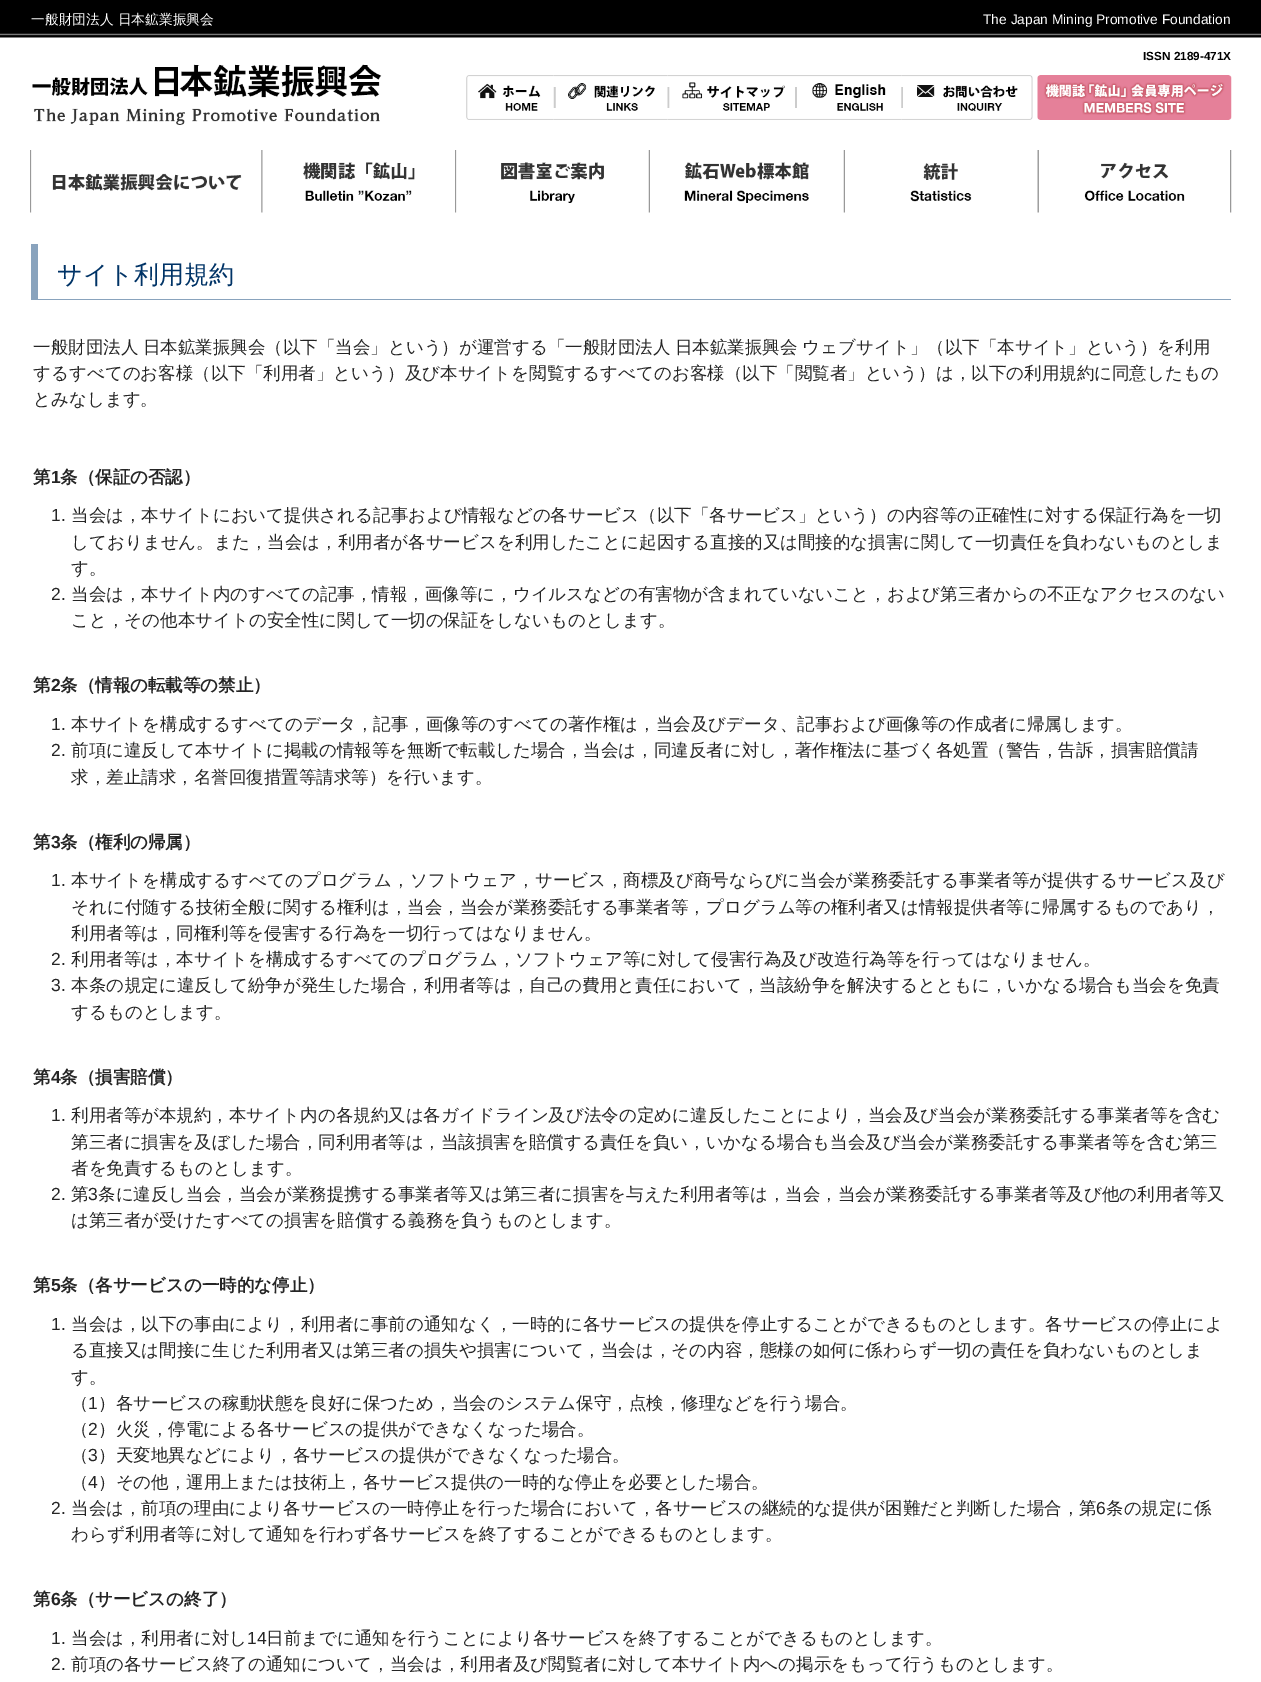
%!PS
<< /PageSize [1261 1682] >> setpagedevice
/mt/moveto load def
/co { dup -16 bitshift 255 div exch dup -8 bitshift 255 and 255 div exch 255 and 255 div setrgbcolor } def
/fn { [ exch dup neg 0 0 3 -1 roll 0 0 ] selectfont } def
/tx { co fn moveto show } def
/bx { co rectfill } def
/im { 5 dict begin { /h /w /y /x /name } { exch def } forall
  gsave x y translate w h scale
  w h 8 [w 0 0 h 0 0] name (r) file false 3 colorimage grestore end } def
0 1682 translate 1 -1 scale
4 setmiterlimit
0 0 1261 1682 16#FFFFFF bx
(media/1.raw) 0 0 1261 38 im
(media/2.raw) 466 75 88 45 im
(media/3.raw) 553 75 115 45 im
(media/4.raw) 667 75 128 45 im
(media/5.raw) 795 75 107 45 im
(media/6.raw) 901 75 132 45 im
(media/7.raw) 1037 75 195 45 im
(media/8.raw) 32 64 350 61 im
(media/9.raw) 30 150 212 63 im
(media/10.raw) 261 150 154 63 im
(media/11.raw) 455 150 149 63 im
(media/12.raw) 648 150 161 63 im
(media/13.raw) 843 150 129 63 im
(media/14.raw) 1037 150 195 63 im
31 299 1200 1 16#89A3BD bx
31 244 7 56 16#89A3BD bx
(一般財団法人 日本鉱業振興会) 31 24 /WenQuanYiZenHei-Medium 13.75 16#FFFFFF tx
(The Japan Mining Promotive Foundation) 983 24 /LiberationSans-Regular 13.75 16#FFFFFF tx
(ISSN 2189-471X) 1143 60 /LiberationSans-Bold 11.75 16#000000 tx
(サイト利用規約) 57 283 /WenQuanYiZenHei-Medium 25 16#003366 tx
/WenQuanYiZenHei-Medium 17.5 fn
16#252525 co
33 353 mt -.5 0 32 (一般財団法人 日本鉱業振興会（以下「当会」という）が運営する「一般財団法人 日本鉱業振興会 ウェブサイト」（以下「本サイト」という）を利用) widthshow
(するすべてのお客様（以下「利用者」という）及び本サイトを閲覧するすべてのお客様（以下「閲覧者」という）は，以下の利用規約に同意したもの) 33 379 /WenQuanYiZenHei-Medium 17.5 16#252525 tx
(とみなします。) 33 405 /WenQuanYiZenHei-Medium 17.5 16#252525 tx
(第) 33 483 /WenQuanYiZenHei-Bold 17.5 16#252525 tx
(1) 51 483 /LiberationSans-Bold 17.5 16#252525 tx
(条（保証の否認）) 60 483 /WenQuanYiZenHei-Bold 17.5 16#252525 tx
(1.) 51 521 /LiberationSans-Regular 17.5 16#252525 tx
(当会は，本サイトにおいて提供される記事および情報などの各サービス（以下「各サービス」という）の内容等の正確性に対する保証行為を一切) 71 521 /WenQuanYiZenHei-Medium 17.5 16#252525 tx
(しておりません。また，当会は，利用者が各サービスを利用したことに起因する直接的又は間接的な損害に関して一切責任を負わないものとしま) 71 548 /WenQuanYiZenHei-Medium 17.5 16#252525 tx
(す。) 71 574 /WenQuanYiZenHei-Medium 17.5 16#252525 tx
(2.) 51 600 /LiberationSans-Regular 17.5 16#252525 tx
(当会は，本サイト内のすべての記事，情報，画像等に，ウイルスなどの有害物が含まれていないこと，および第三者からの不正なアクセスのない) 71 600 /WenQuanYiZenHei-Medium 17.5 16#252525 tx
(こと，その他本サイトの安全性に関して一切の保証をしないものとします。) 71 626 /WenQuanYiZenHei-Medium 17.5 16#252525 tx
(第) 33 691 /WenQuanYiZenHei-Bold 17.5 16#252525 tx
(2) 51 691 /LiberationSans-Bold 17.5 16#252525 tx
(条（情報の転載等の禁止）) 60 691 /WenQuanYiZenHei-Bold 17.5 16#252525 tx
(1.) 51 730 /LiberationSans-Regular 17.5 16#252525 tx
(本サイトを構成するすべてのデータ，記事，画像等のすべての著作権は，当会及びデータ、記事および画像等の作成者に帰属します。) 71 730 /WenQuanYiZenHei-Medium 17.5 16#252525 tx
(2.) 51 756 /LiberationSans-Regular 17.5 16#252525 tx
(前項に違反して本サイトに掲載の情報等を無断で転載した場合，当会は，同違反者に対し，著作権法に基づく各処置（警告，告訴，損害賠償請) 71 756 /WenQuanYiZenHei-Medium 17.5 16#252525 tx
(求，差止請求，名誉回復措置等請求等）を行います。) 71 783 /WenQuanYiZenHei-Medium 17.5 16#252525 tx
(第) 33 848 /WenQuanYiZenHei-Bold 17.5 16#252525 tx
(3) 51 848 /LiberationSans-Bold 17.5 16#252525 tx
(条（権利の帰属）) 60 848 /WenQuanYiZenHei-Bold 17.5 16#252525 tx
(1.) 51 886 /LiberationSans-Regular 17.5 16#252525 tx
(本サイトを構成するすべてのプログラム，ソフトウェア，サービス，商標及び商号ならびに当会が業務委託する事業者等が提供するサービス及び) 71 886 /WenQuanYiZenHei-Medium 17.5 16#252525 tx
(それに付随する技術全般に関する権利は，当会，当会が業務委託する事業者等，プログラム等の権利者又は情報提供者等に帰属するものであり，) 71 913 /WenQuanYiZenHei-Medium 17.5 16#252525 tx
(利用者等は，同権利等を侵害する行為を一切行ってはなりません。) 71 939 /WenQuanYiZenHei-Medium 17.5 16#252525 tx
(2.) 51 965 /LiberationSans-Regular 17.5 16#252525 tx
(利用者等は，本サイトを構成するすべてのプログラム，ソフトウェア等に対して侵害行為及び改造行為等を行ってはなりません。) 71 965 /WenQuanYiZenHei-Medium 17.5 16#252525 tx
(3.) 51 991 /LiberationSans-Regular 17.5 16#252525 tx
(本条の規定に違反して紛争が発生した場合，利用者等は，自己の費用と責任において，当該紛争を解決するとともに，いかなる場合も当会を免責) 71 991 /WenQuanYiZenHei-Medium 17.5 16#252525 tx
(するものとします。) 71 1018 /WenQuanYiZenHei-Medium 17.5 16#252525 tx
(第) 33 1083 /WenQuanYiZenHei-Bold 17.5 16#252525 tx
(4) 51 1083 /LiberationSans-Bold 17.5 16#252525 tx
(条（損害賠償）) 60 1083 /WenQuanYiZenHei-Bold 17.5 16#252525 tx
(1.) 51 1121 /LiberationSans-Regular 17.5 16#252525 tx
(利用者等が本規約，本サイト内の各規約又は各ガイドライン及び法令の定めに違反したことにより，当会及び当会が業務委託する事業者等を含む) 71 1121 /WenQuanYiZenHei-Medium 17.5 16#252525 tx
(第三者に損害を及ぼした場合，同利用者等は，当該損害を賠償する責任を負い，いかなる場合も当会及び当会が業務委託する事業者等を含む第三) 71 1148 /WenQuanYiZenHei-Medium 17.5 16#252525 tx
(者を免責するものとします。) 71 1174 /WenQuanYiZenHei-Medium 17.5 16#252525 tx
(2.) 51 1200 /LiberationSans-Regular 17.5 16#252525 tx
(第) 71 1200 /WenQuanYiZenHei-Medium 17.5 16#252525 tx
(3) 88 1200 /LiberationSans-Regular 17.5 16#252525 tx
(条に違反し当会，当会が業務提携する事業者等又は第三者に損害を与えた利用者等は，当会，当会が業務委託する事業者等及び他の利用者等又) 98 1200 /WenQuanYiZenHei-Medium 17.5 16#252525 tx
(は第三者が受けたすべての損害を賠償する義務を負うものとします。) 71 1226 /WenQuanYiZenHei-Medium 17.5 16#252525 tx
(第) 33 1291 /WenQuanYiZenHei-Bold 17.5 16#252525 tx
(5) 51 1291 /LiberationSans-Bold 17.5 16#252525 tx
(条（各サービスの一時的な停止）) 60 1291 /WenQuanYiZenHei-Bold 17.5 16#252525 tx
(1.) 51 1330 /LiberationSans-Regular 17.5 16#252525 tx
(当会は，以下の事由により，利用者に事前の通知なく，一時的に各サービスの提供を停止することができるものとします。各サービスの停止によ) 71 1330 /WenQuanYiZenHei-Medium 17.5 16#252525 tx
(る直接又は間接に生じた利用者又は第三者の損失や損害について，当会は，その内容，態様の如何に係わらず一切の責任を負わないものとしま) 71 1356 /WenQuanYiZenHei-Medium 17.5 16#252525 tx
(す。) 71 1383 /WenQuanYiZenHei-Medium 17.5 16#252525 tx
(（) 71 1409 /WenQuanYiZenHei-Medium 17.5 16#252525 tx
(1) 88 1409 /LiberationSans-Regular 17.5 16#252525 tx
(）各サービスの稼動状態を良好に保つため，当会のシステム保守，点検，修理などを行う場合。) 98 1409 /WenQuanYiZenHei-Medium 17.5 16#252525 tx
(（) 71 1435 /WenQuanYiZenHei-Medium 17.5 16#252525 tx
(2) 88 1435 /LiberationSans-Regular 17.5 16#252525 tx
(）火災，停電による各サービスの提供ができなくなった場合。) 98 1435 /WenQuanYiZenHei-Medium 17.5 16#252525 tx
(（) 71 1461 /WenQuanYiZenHei-Medium 17.5 16#252525 tx
(3) 88 1461 /LiberationSans-Regular 17.5 16#252525 tx
(）天変地異などにより，各サービスの提供ができなくなった場合。) 98 1461 /WenQuanYiZenHei-Medium 17.5 16#252525 tx
(（) 71 1488 /WenQuanYiZenHei-Medium 17.5 16#252525 tx
(4) 88 1488 /LiberationSans-Regular 17.5 16#252525 tx
(）その他，運用上または技術上，各サービス提供の一時的な停止を必要とした場合。) 98 1488 /WenQuanYiZenHei-Medium 17.5 16#252525 tx
(2.) 51 1514 /LiberationSans-Regular 17.5 16#252525 tx
(当会は，前項の理由により各サービスの一時停止を行った場合において，各サービスの継続的な提供が困難だと判断した場合，第) 71 1514 /WenQuanYiZenHei-Medium 17.5 16#252525 tx
(6) 1096 1514 /LiberationSans-Regular 17.5 16#252525 tx
(条の規定に係) 1106 1514 /WenQuanYiZenHei-Medium 17.5 16#252525 tx
(わらず利用者等に対して通知を行わず各サービスを終了することができるものとします。) 71 1540 /WenQuanYiZenHei-Medium 17.5 16#252525 tx
(第) 33 1605 /WenQuanYiZenHei-Bold 17.5 16#252525 tx
(6) 51 1605 /LiberationSans-Bold 17.5 16#252525 tx
(条（サービスの終了）) 60 1605 /WenQuanYiZenHei-Bold 17.5 16#252525 tx
(1.) 51 1644 /LiberationSans-Regular 17.5 16#252525 tx
(当会は，利用者に対し) 71 1644 /WenQuanYiZenHei-Medium 17.5 16#252525 tx
(14) 247 1644 /LiberationSans-Regular 17.5 16#252525 tx
(日前までに通知を行うことにより各サービスを終了することができるものとします。) 266 1644 /WenQuanYiZenHei-Medium 17.5 16#252525 tx
(2.) 51 1670 /LiberationSans-Regular 17.5 16#252525 tx
(前項の各サービス終了の通知について，当会は，利用者及び閲覧者に対して本サイト内への掲示をもって行うものとします。) 71 1670 /WenQuanYiZenHei-Medium 17.5 16#252525 tx
showpage
